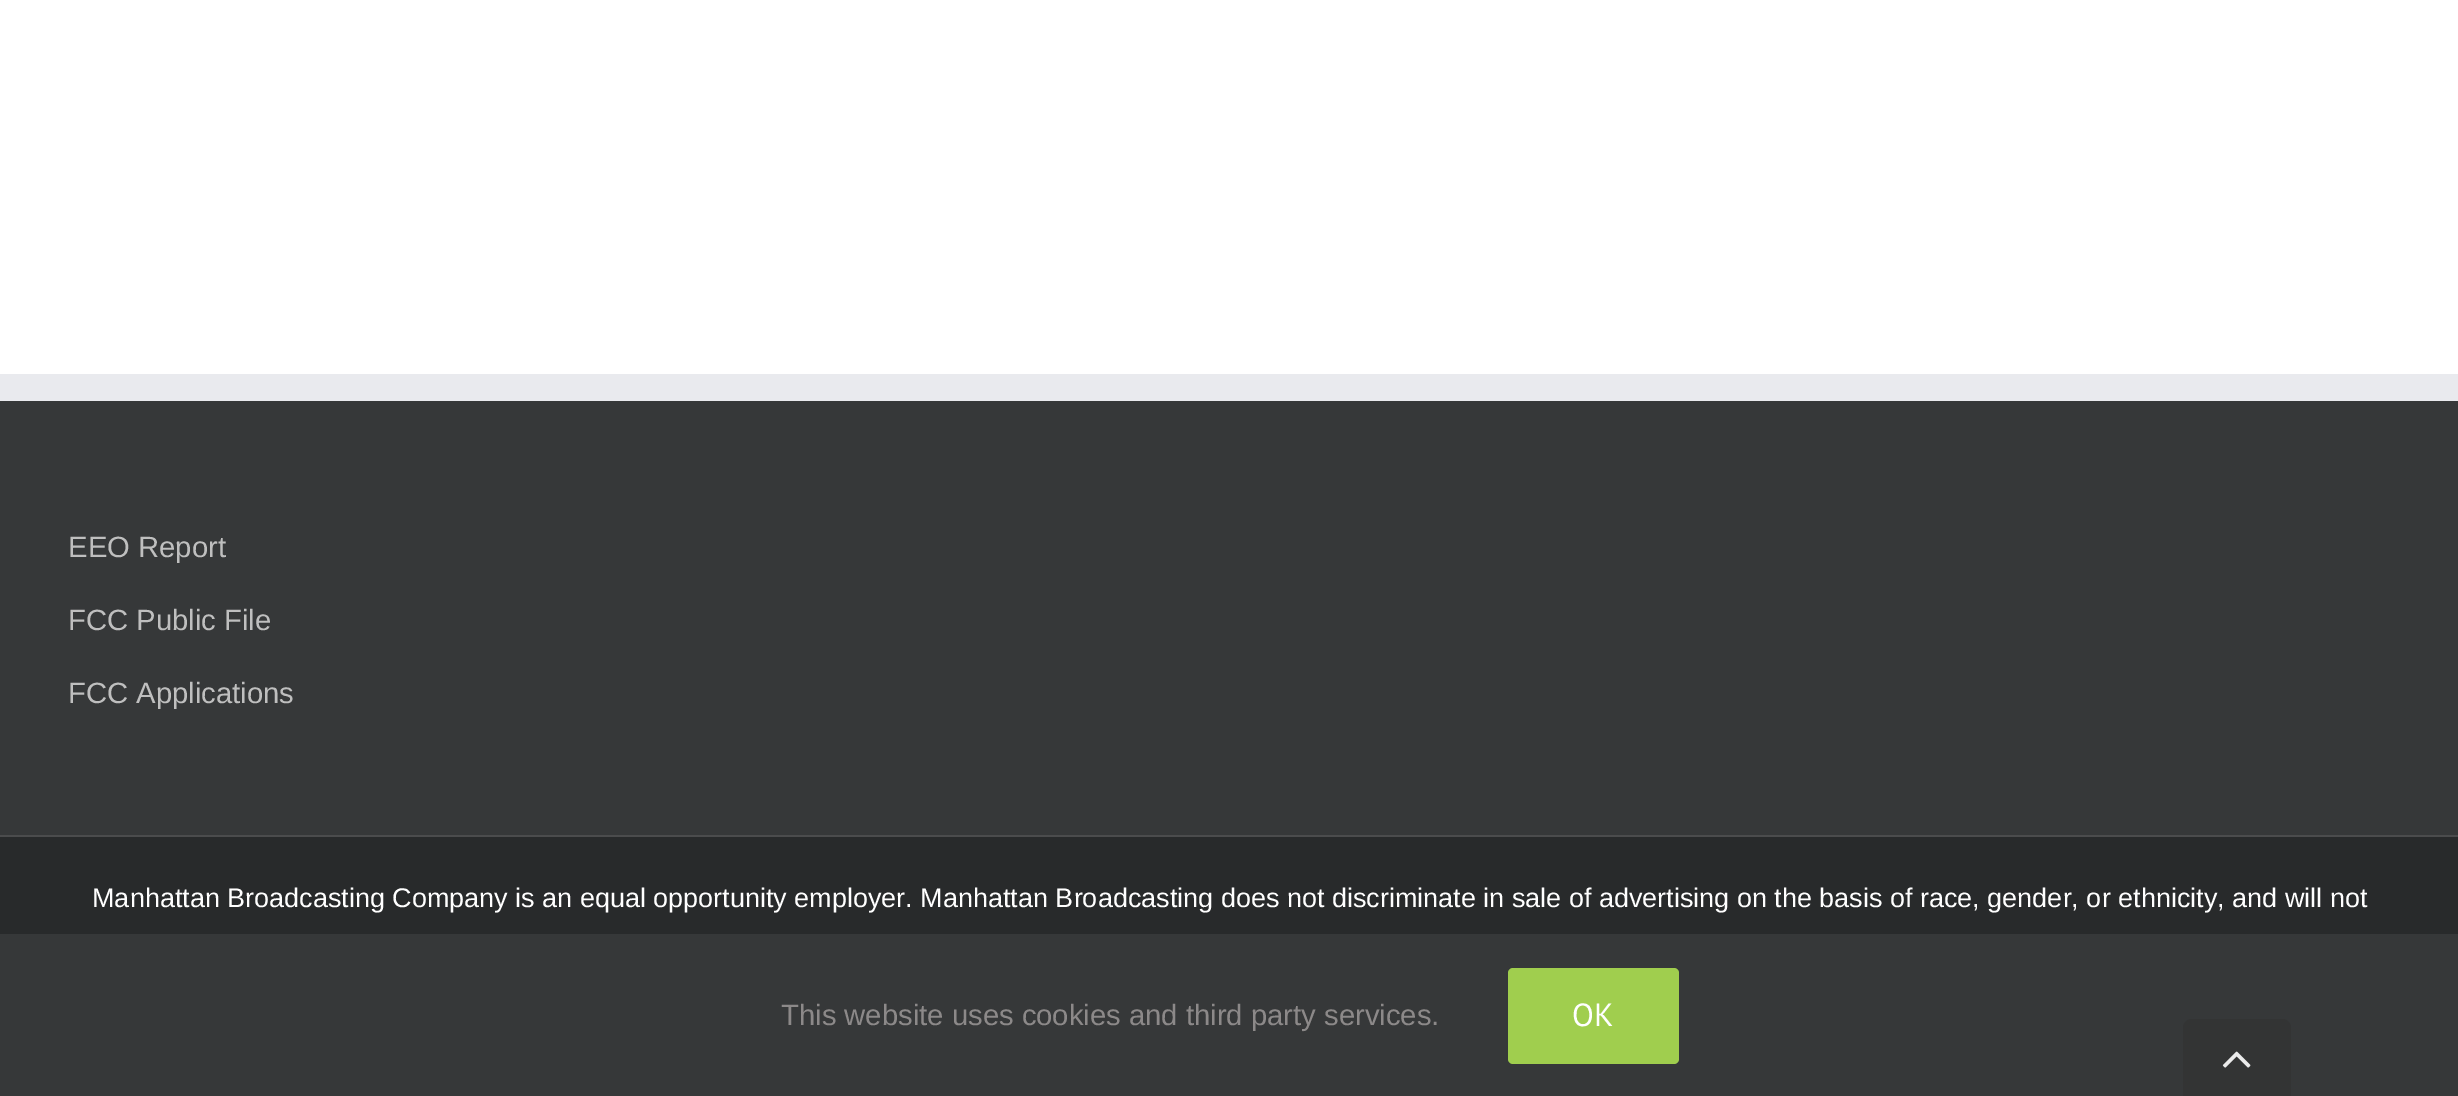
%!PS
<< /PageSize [2458 1096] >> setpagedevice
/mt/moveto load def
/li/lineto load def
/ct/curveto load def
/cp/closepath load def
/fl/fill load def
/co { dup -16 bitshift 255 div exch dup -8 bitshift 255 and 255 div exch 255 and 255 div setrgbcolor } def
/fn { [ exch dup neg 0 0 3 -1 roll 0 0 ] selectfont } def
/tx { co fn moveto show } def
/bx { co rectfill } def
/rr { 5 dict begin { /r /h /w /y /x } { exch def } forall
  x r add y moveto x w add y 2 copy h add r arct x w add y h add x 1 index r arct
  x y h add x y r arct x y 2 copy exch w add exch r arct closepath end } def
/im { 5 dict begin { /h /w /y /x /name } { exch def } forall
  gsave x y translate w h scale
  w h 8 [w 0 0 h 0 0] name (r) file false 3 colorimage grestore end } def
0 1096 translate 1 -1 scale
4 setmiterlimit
0 0 2458 1096 16#FFFFFF bx
0 401 2458 434 16#363839 bx
0 374 2458 27 16#E9EAEE bx
0 837 2458 97 16#282A2B bx
0 835 2458 2 16#4B4C4D bx
0 934 2458 162 16#363839 bx
16#A0CE4E co
1508 968 171 96 5 rr fl
16#333434 co
2192 1019 mt 2282 1019 li 2287 1019 2291 1023 2291 1028 ct 2291 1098 li 2183 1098 li 2183 1028 li 2183 1023 2187 1019 2192 1019 ct cp fl
(media/1.raw) 2222 1051 29 17 im
(EEO Report) 68 557 /LiberationSans-Regular 29.25 16#BFBFBF tx
(FCC Public File) 68 630 /LiberationSans-Regular 29.25 16#BFBFBF tx
(FCC Applications) 68 703 /LiberationSans-Regular 29.25 16#BFBFBF tx
(Manhattan Broadcasting Company is an equal opportunity employer. Manhattan Broadcasting does not discriminate in sale of advertising on the basis of race, gender, or ethnicity, and will not) 92 907 /LiberationSans-Regular 27 16#FFFFFF tx
(This website uses cookies and third party services.) 781 1025 /LiberationSans-Regular 29.25 16#8C8989 tx
(OK) 1572 1026 /PTSans-Regular 32 16#FFFFFF tx
showpage
